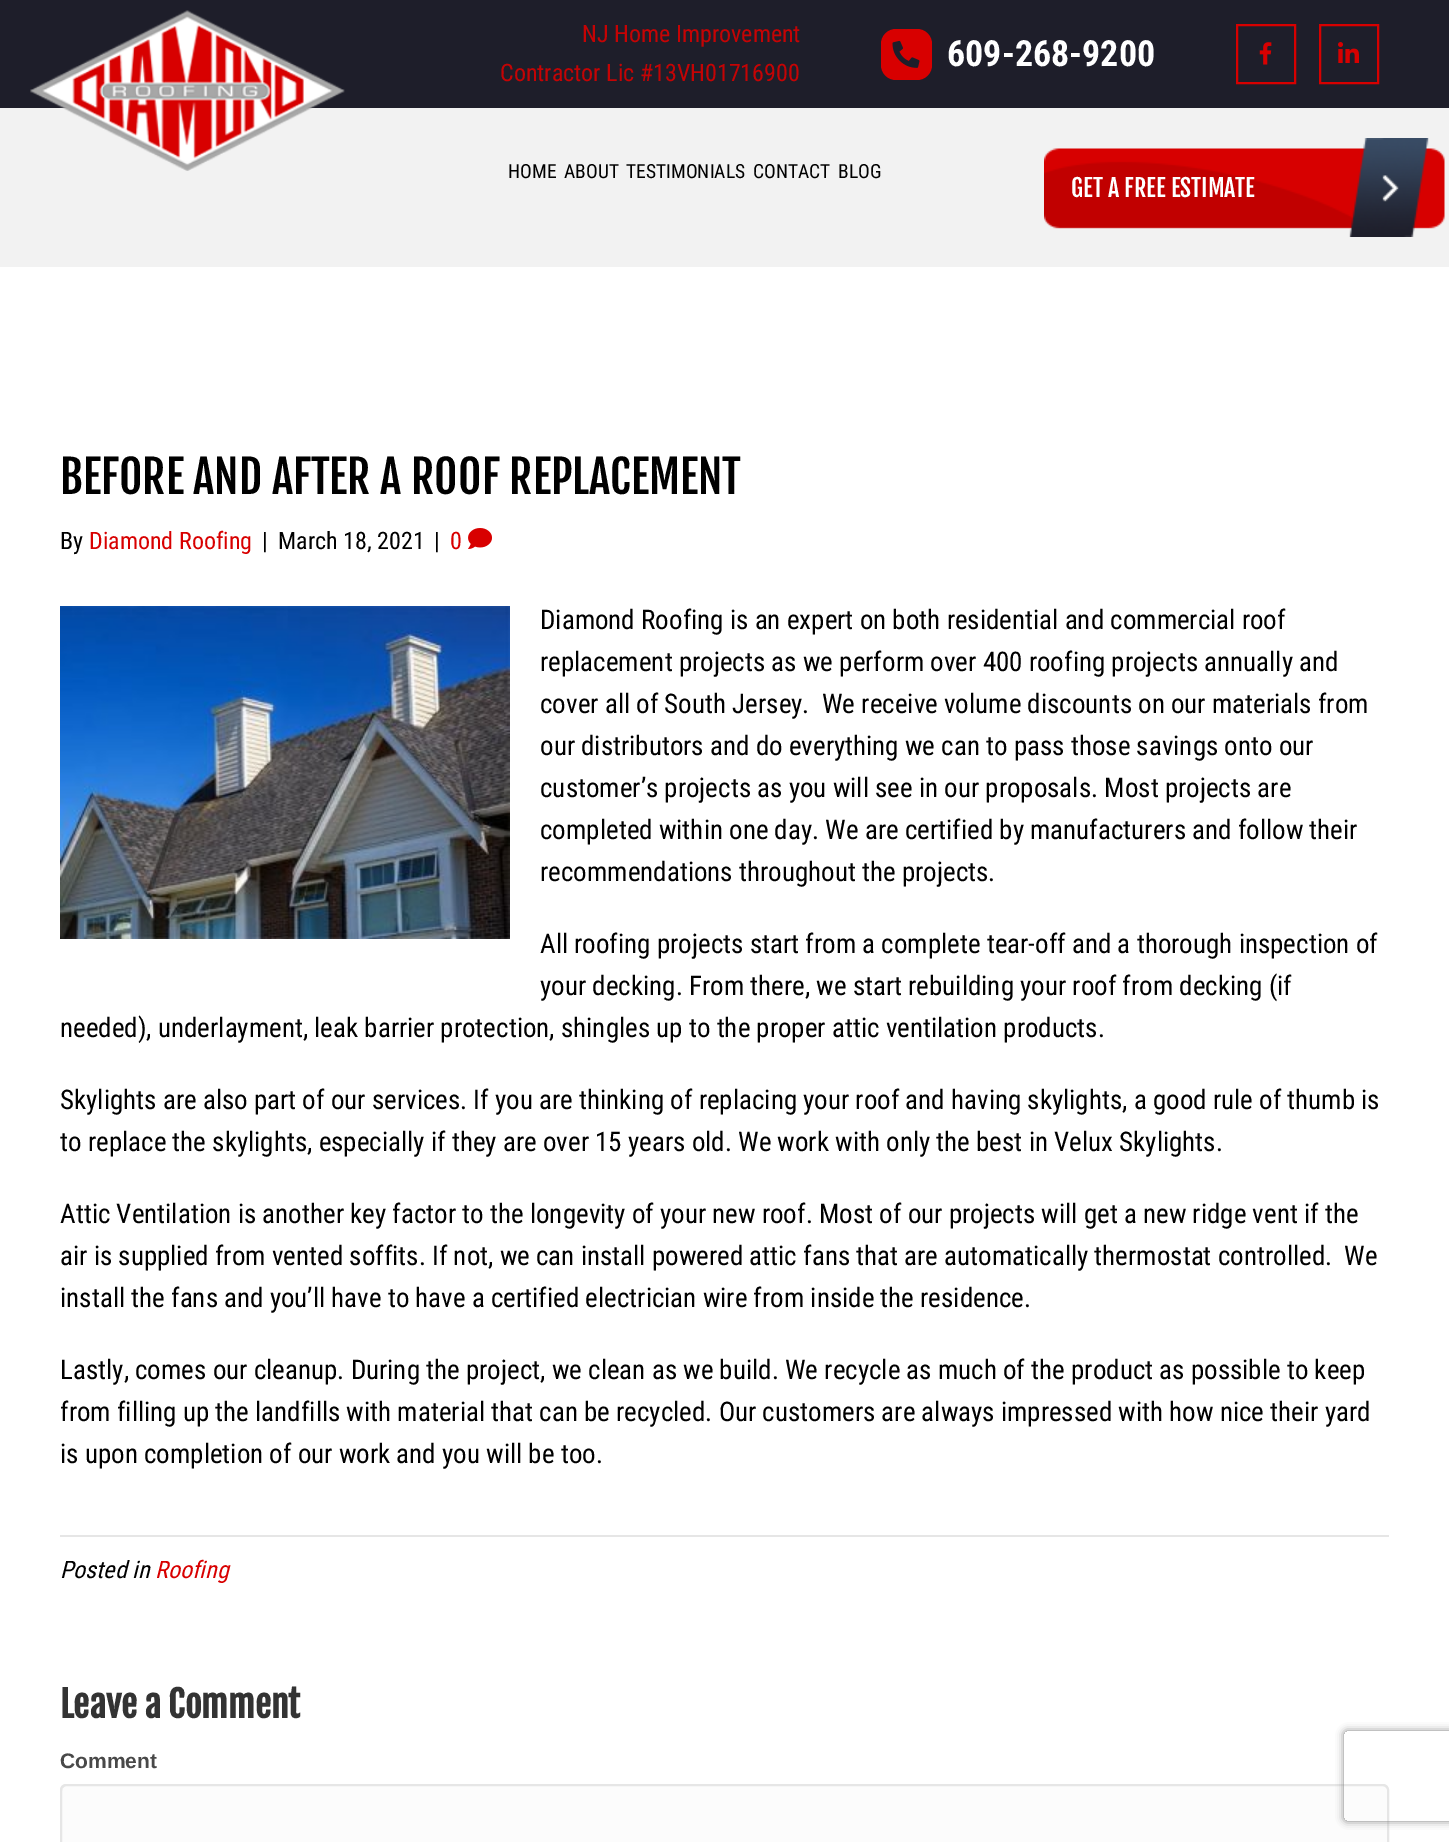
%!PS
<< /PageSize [1449 1842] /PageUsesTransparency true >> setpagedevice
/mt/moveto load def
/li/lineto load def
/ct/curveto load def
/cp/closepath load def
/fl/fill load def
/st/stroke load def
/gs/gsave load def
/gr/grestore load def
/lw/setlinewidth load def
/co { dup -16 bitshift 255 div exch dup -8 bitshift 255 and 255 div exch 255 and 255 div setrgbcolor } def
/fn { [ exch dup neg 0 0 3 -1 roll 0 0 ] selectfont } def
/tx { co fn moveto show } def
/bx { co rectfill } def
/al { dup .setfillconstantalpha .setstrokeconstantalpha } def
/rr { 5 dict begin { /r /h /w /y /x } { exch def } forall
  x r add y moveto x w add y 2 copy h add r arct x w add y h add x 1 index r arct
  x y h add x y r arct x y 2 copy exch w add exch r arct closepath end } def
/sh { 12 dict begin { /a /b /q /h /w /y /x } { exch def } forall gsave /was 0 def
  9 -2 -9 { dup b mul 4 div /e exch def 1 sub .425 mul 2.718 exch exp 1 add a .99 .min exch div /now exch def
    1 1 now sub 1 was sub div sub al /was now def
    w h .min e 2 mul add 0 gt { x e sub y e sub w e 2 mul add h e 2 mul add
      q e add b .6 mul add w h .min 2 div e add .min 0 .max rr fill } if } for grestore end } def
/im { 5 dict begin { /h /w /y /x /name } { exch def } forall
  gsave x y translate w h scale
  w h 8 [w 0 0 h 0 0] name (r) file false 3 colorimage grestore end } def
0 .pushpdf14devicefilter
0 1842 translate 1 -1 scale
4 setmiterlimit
0 0 1449 1842 16#F2F2F2 bx
0 0 1449 108 16#1E1E2A bx
16#D80000 co
881 29 51 51 15 rr fl
(media/1.raw) 892 40 28 28 im
16#D70000 co
2 lw
1237 25 58 58 rectstroke
(media/2.raw) 1259 42 13 23 im
1320 25 58 58 rectstroke
(media/3.raw) 1338 42 21 21 im
(media/4.raw) 30 10 315 161 im
(media/5.raw) 1044 138 401 99 im
0 267 1449 1575 16#FFFFFF bx
(media/6.raw) 468 528 24 21 im
(media/7.raw) 60 606 450 333 im
60 1535 1329 2 16#E6E6E6 bx
16#FCFCFC co
60 1784 1329 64 6 rr fl
16#E9E9E9 co
66 1786 mt 1383 1786 li 1385 1786 1388 1789 1388 1791 ct 1388 1788 1386 1785 1383 1785 ct 67 1785 li 64 1785 62 1788 62 1791 ct 62 1789 64 1786 66 1786 ct cp fl
16#E6E6E6 co
61 1785 1327 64 5 rr st
gs
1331 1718 mt 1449 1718 li 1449 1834 li 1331 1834 li cp 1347 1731 mt 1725 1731 li 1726.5 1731 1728 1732.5 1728 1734 ct 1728 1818 li 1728 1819.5 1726.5 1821 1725 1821 ct 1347 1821 li 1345.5 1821 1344 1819.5 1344 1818 ct 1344 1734 li 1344 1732.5 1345.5 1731 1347 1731 ct cp eoclip newpath
16#808080 co
1344 1731 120 90 3 4 1 sh
gr
(NJ Home Improvement) 582 42 /RobotoCondensed-Regular 24 16#C50304 tx
(Contractor Lic #13VH01716900) 500 81 /RobotoCondensed-Regular 24 16#C50304 tx
(609-268-9200) 947 66 /RobotoCondensed-Bold 36 16#FFFFFF tx
(HOME) 508 178 /RobotoCondensed-Regular 19.5 16#000000 tx
(ABOUT) 564 178 /RobotoCondensed-Regular 19.5 16#000000 tx
(TESTIMONIALS) 626 178 /RobotoCondensed-Regular 19.5 16#000000 tx
(CONTACT) 753 178 /RobotoCondensed-Regular 19.5 16#000000 tx
(BLOG) 838 178 /RobotoCondensed-Regular 19.5 16#000000 tx
(GET A FREE ESTIMATE) 1071 197 /FjallaOne-Regular 24 16#FFFFFF tx
(BEFORE AND AFTER A ROOF REPLACEMENT) 60 494 /FjallaOne-Regular 45 16#000000 tx
(By) 60 549 /RobotoCondensed-Regular 24 16#000000 tx
(Diamond Roofing) 89 549 /RobotoCondensed-Regular 24 16#D80000 tx
(|) 262 549 /RobotoCondensed-Regular 24 16#000000 tx
(March 18, 2021) 278 549 /RobotoCondensed-Regular 24 16#000000 tx
(|) 434 549 /RobotoCondensed-Regular 24 16#000000 tx
(0) 450 549 /RobotoCondensed-Regular 24 16#D80000 tx
(Diamond Roofing is an expert on both residential and commercial roof) 540 629 /RobotoCondensed-Regular 27 16#000000 tx
(replacement projects as we perform over 400 roofing projects annually and) 540 671 /RobotoCondensed-Regular 27 16#000000 tx
(cover all of South Jersey.  We receive volume discounts on our materials from) 540 713 /RobotoCondensed-Regular 27 16#000000 tx
(our distributors and do everything we can to pass those savings onto our) 540 755 /RobotoCondensed-Regular 27 16#000000 tx
(customer’s projects as you will see in our proposals. Most projects are) 540 797 /RobotoCondensed-Regular 27 16#000000 tx
(completed within one day. We are certified by manufacturers and follow their) 540 839 /RobotoCondensed-Regular 27 16#000000 tx
(recommendations throughout the projects.) 540 881 /RobotoCondensed-Regular 27 16#000000 tx
(All roofing projects start from a complete tear-off and a thorough inspection of) 540 953 /RobotoCondensed-Regular 27 16#000000 tx
(your decking. From there, we start rebuilding your roof from decking \(if) 540 995 /RobotoCondensed-Regular 27 16#000000 tx
(needed\), underlayment, leak barrier protection, shingles up to the proper attic ventilation products.) 60 1037 /RobotoCondensed-Regular 27 16#000000 tx
(Skylights are also part of our services. If you are thinking of replacing your roof and having skylights, a good rule of thumb is) 60 1109 /RobotoCondensed-Regular 27 16#000000 tx
(to replace the skylights, especially if they are over 15 years old. We work with only the best in Velux Skylights.) 60 1151 /RobotoCondensed-Regular 27 16#000000 tx
(Attic Ventilation is another key factor to the longevity of your new roof. Most of our projects will get a new ridge vent if the) 60 1223 /RobotoCondensed-Regular 27 16#000000 tx
(air is supplied from vented soffits. If not, we can install powered attic fans that are automatically thermostat controlled.  We) 60 1265 /RobotoCondensed-Regular 27 16#000000 tx
(install the fans and you’ll have to have a certified electrician wire from inside the residence.) 60 1307 /RobotoCondensed-Regular 27 16#000000 tx
(Lastly, comes our cleanup. During the project, we clean as we build. We recycle as much of the product as possible to keep) 60 1379 /RobotoCondensed-Regular 27 16#000000 tx
(from filling up the landfills with material that can be recycled. Our customers are always impressed with how nice their yard) 60 1421 /RobotoCondensed-Regular 27 16#000000 tx
(is upon completion of our work and you will be too.) 60 1463 /RobotoCondensed-Regular 27 16#000000 tx
(Posted in) 60 1578 /RobotoCondensed-Italic 24 16#000000 tx
(Roofing) 155 1578 /RobotoCondensed-Italic 24 16#D80000 tx
(Leave a Comment) 60 1718 /FjallaOne-Bold 36 16#333333 tx
(Comment) 60 1768 /LiberationSans-Bold 21 16#494949 tx
.poppdf14devicefilter showpage
